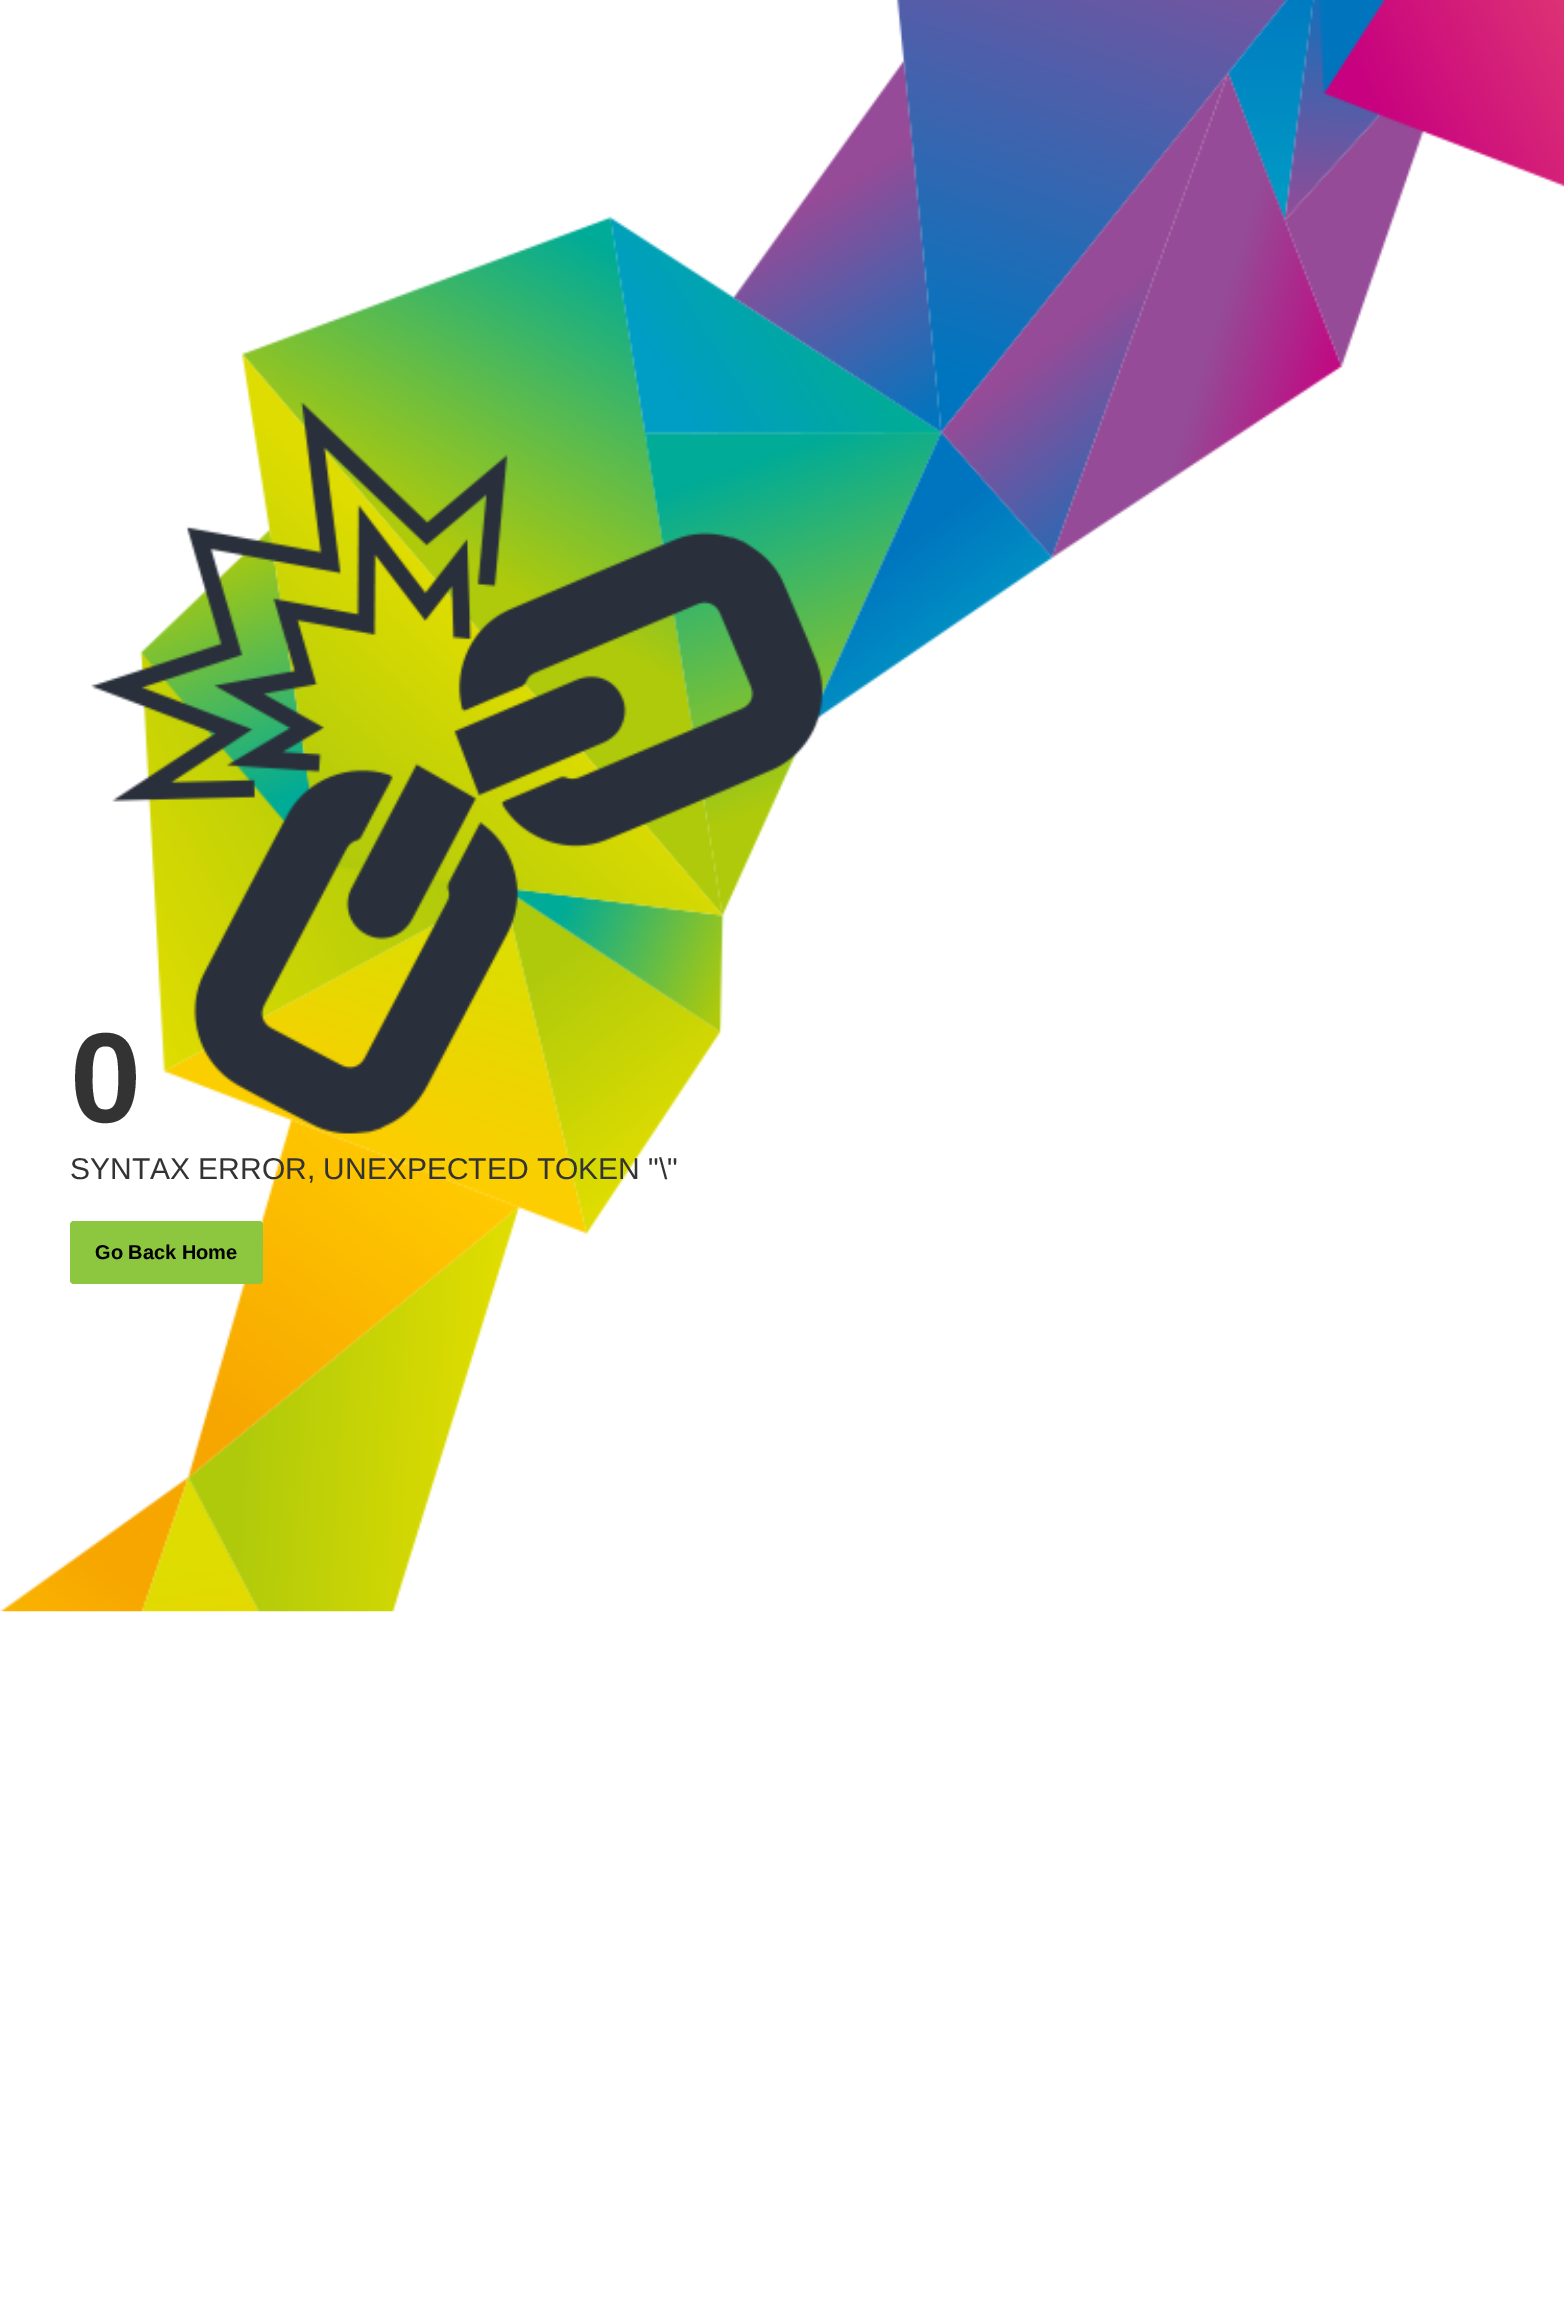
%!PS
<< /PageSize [1564 2297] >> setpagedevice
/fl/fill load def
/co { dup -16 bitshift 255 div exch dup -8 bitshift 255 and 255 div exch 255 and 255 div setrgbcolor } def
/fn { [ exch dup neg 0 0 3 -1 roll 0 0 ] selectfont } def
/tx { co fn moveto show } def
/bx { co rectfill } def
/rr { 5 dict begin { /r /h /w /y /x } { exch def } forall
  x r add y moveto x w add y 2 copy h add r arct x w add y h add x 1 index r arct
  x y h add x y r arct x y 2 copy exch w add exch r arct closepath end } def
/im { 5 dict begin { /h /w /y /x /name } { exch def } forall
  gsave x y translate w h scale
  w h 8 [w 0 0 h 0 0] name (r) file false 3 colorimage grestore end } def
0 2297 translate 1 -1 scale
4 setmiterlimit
0 0 1564 2297 16#FFFFFF bx
(media/1.raw) 0 0 1564 1612 im
16#8DC63F co
70 1221 193 63 4 rr fl
(0) 70 1122 /LiberationSans-Bold 128 16#333333 tx
(SYNTAX ERROR, UNEXPECTED TOKEN "\\") 70 1179 /LiberationSans-Regular 30 16#333333 tx
(Go Back Home) 95 1259 /LiberationSans-Bold 20 16#000000 tx
showpage
